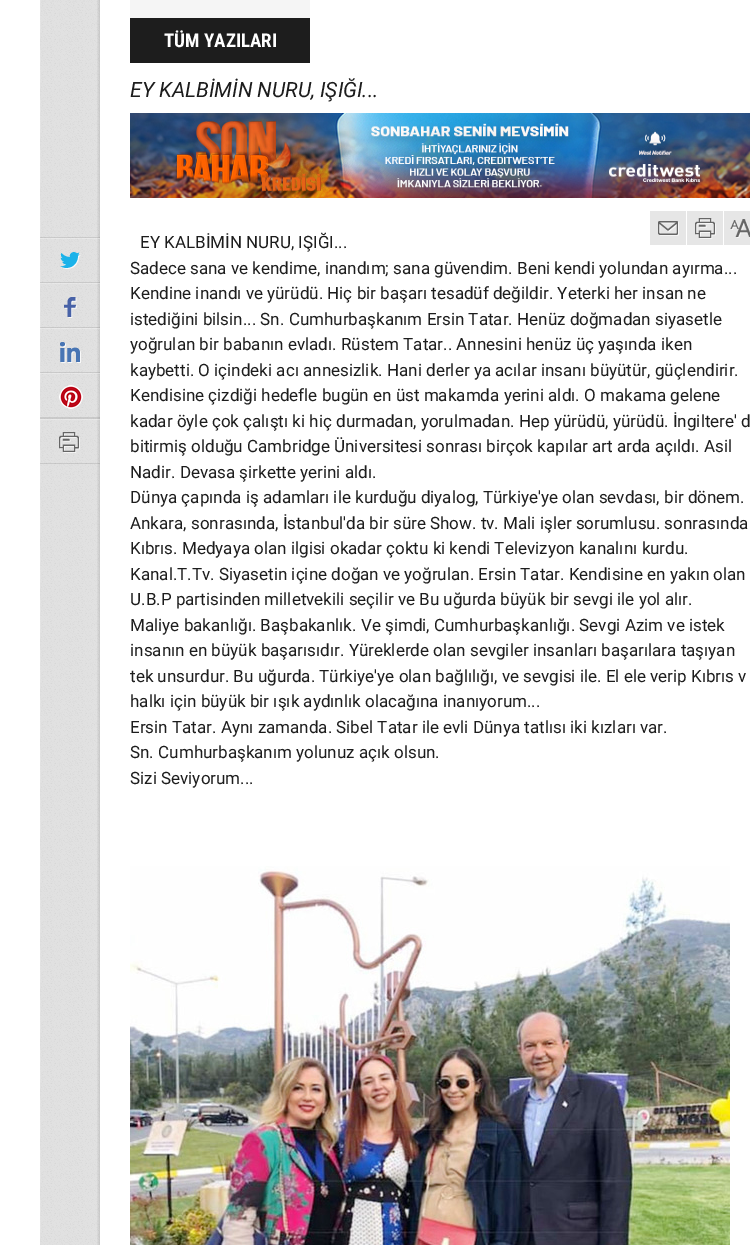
%!PS
<< /PageSize [750 1245] /PageUsesTransparency true >> setpagedevice
/co { dup -16 bitshift 255 div exch dup -8 bitshift 255 and 255 div exch 255 and 255 div setrgbcolor } def
/fn { [ exch dup neg 0 0 3 -1 roll 0 0 ] selectfont } def
/tx { co fn moveto show } def
/bx { co rectfill } def
/al { dup .setfillconstantalpha .setstrokeconstantalpha } def
/im { 5 dict begin { /h /w /y /x /name } { exch def } forall
  gsave x y translate w h scale
  w h 8 [w 0 0 h 0 0] name (r) file false 3 colorimage grestore end } def
0 .pushpdf14devicefilter
0 1245 translate 1 -1 scale
4 setmiterlimit
0 0 750 1245 16#FFFFFF bx
(media/1.raw) 40 0 60 1245 im
(media/2.raw) 60 252 21 17 im
0.1 al
40 237 60 1 16#000000 bx
0.3 al
40 238 60 1 16#FAFAFA bx
1 al
(media/3.raw) 64 297 13 21 im
0.1 al
40 282 60 1 16#000000 bx
0.3 al
40 283 60 1 16#FAFAFA bx
1 al
(media/4.raw) 60 342 21 21 im
0.1 al
40 327 60 1 16#000000 bx
0.3 al
40 328 60 1 16#FAFAFA bx
1 al
(media/5.raw) 59 385 24 24 im
0.1 al
40 372 60 1 16#000000 bx
0.3 al
40 373 60 1 16#FAFAFA bx
0.1 al
40 417 60 1 16#000000 bx
40 463 60 1 16#000000 bx
1 al
(media/6.raw) 59 432 21 21 im
0.1 al
40 418 60 1 16#000000 bx
0.3 al
40 419 60 1 16#FAFAFA bx
1 al
130 0 180 18 16#F5F5F5 bx
130 18 180 45 16#1D1D1D bx
(media/7.raw) 130 113 620 85 im
650 211 36 34 16#E6E6E6 bx
(media/8.raw) 658 221 21 15 im
687 211 36 34 16#E6E6E6 bx
(media/9.raw) 695 218 21 21 im
724 211 26 34 16#E6E6E6 bx
(media/10.raw) 730 219 20 19 im
(media/11.raw) 130 866 600 379 im
(TÜM YAZILARI) 164 47 /RobotoCondensed-Bold 19 16#FFFFFF tx
(EY KALBİMİN NURU, IŞIĞI...) 130 97 /Roboto-Italic 21 16#1D1D1D tx
(EY KALBİMİN NURU, IŞIĞI...) 140 248 /Roboto-Regular 17 16#1D1D1D tx
(Sadece sana ve kendime, inandım; sana güvendim. Beni kendi yolundan ayırma...) 130 274 /Roboto-Regular 17 16#1D1D1D tx
(Kendine inandı ve yürüdü. Hiç bir başarı tesadüf değildir. Yeterki her insan ne) 130 299 /Roboto-Regular 17 16#1D1D1D tx
(istediğini bilsin... Sn. Cumhurbaşkanım Ersin Tatar. Henüz doğmadan siyasetle) 130 325 /Roboto-Regular 17 16#1D1D1D tx
(yoğrulan bir babanın evladı. Rüstem Tatar.. Annesini henüz üç yaşında iken) 130 350 /Roboto-Regular 17 16#1D1D1D tx
(kaybetti. O içindeki acı annesizlik. Hani derler ya acılar insanı büyütür, güçlendirir.) 130 376 /Roboto-Regular 17 16#1D1D1D tx
(Kendisine çizdiği hedefle bugün en üst makamda yerini aldı. O makama gelene) 130 401 /Roboto-Regular 17 16#1D1D1D tx
(kadar öyle çok çalıştı ki hiç durmadan, yorulmadan. Hep yürüdü, yürüdü. İngiltere' d) 130 427 /Roboto-Regular 17 16#1D1D1D tx
(bitirmiş olduğu Cambridge Üniversitesi sonrası birçok kapılar art arda açıldı. Asil) 130 452 /Roboto-Regular 17 16#1D1D1D tx
(Nadir. Devasa şirkette yerini aldı.) 130 478 /Roboto-Regular 17 16#1D1D1D tx
(Dünya çapında iş adamları ile kurduğu diyalog, Türkiye'ye olan sevdası, bir dönem.) 130 503 /Roboto-Regular 17 16#1D1D1D tx
(Ankara, sonrasında, İstanbul'da bir süre Show. tv. Mali işler sorumlusu. sonrasında) 130 529 /Roboto-Regular 17 16#1D1D1D tx
(Kıbrıs. Medyaya olan ilgisi okadar çoktu ki kendi Televizyon kanalını kurdu.) 130 554 /Roboto-Regular 17 16#1D1D1D tx
(Kanal.T.Tv. Siyasetin içine doğan ve yoğrulan. Ersin Tatar. Kendisine en yakın olan) 130 580 /Roboto-Regular 17 16#1D1D1D tx
(U.B.P partisinden milletvekili seçilir ve Bu uğurda büyük bir sevgi ile yol alır.) 130 605 /Roboto-Regular 17 16#1D1D1D tx
(Maliye bakanlığı. Başbakanlık. Ve şimdi, Cumhurbaşkanlığı. Sevgi Azim ve istek) 130 631 /Roboto-Regular 17 16#1D1D1D tx
(insanın en büyük başarısıdır. Yüreklerde olan sevgiler insanları başarılara taşıyan) 130 656 /Roboto-Regular 17 16#1D1D1D tx
(tek unsurdur. Bu uğurda. Türkiye'ye olan bağlılığı, ve sevgisi ile. El ele verip Kıbrıs v) 130 682 /Roboto-Regular 17 16#1D1D1D tx
(halkı için büyük bir ışık aydınlık olacağına inanıyorum...) 130 707 /Roboto-Regular 17 16#1D1D1D tx
(Ersin Tatar. Aynı zamanda. Sibel Tatar ile evli Dünya tatlısı iki kızları var.) 130 733 /Roboto-Regular 17 16#1D1D1D tx
(Sn. Cumhurbaşkanım yolunuz açık olsun.) 130 758 /Roboto-Regular 17 16#1D1D1D tx
(Sizi Seviyorum...) 130 784 /Roboto-Regular 17 16#1D1D1D tx
.poppdf14devicefilter showpage
